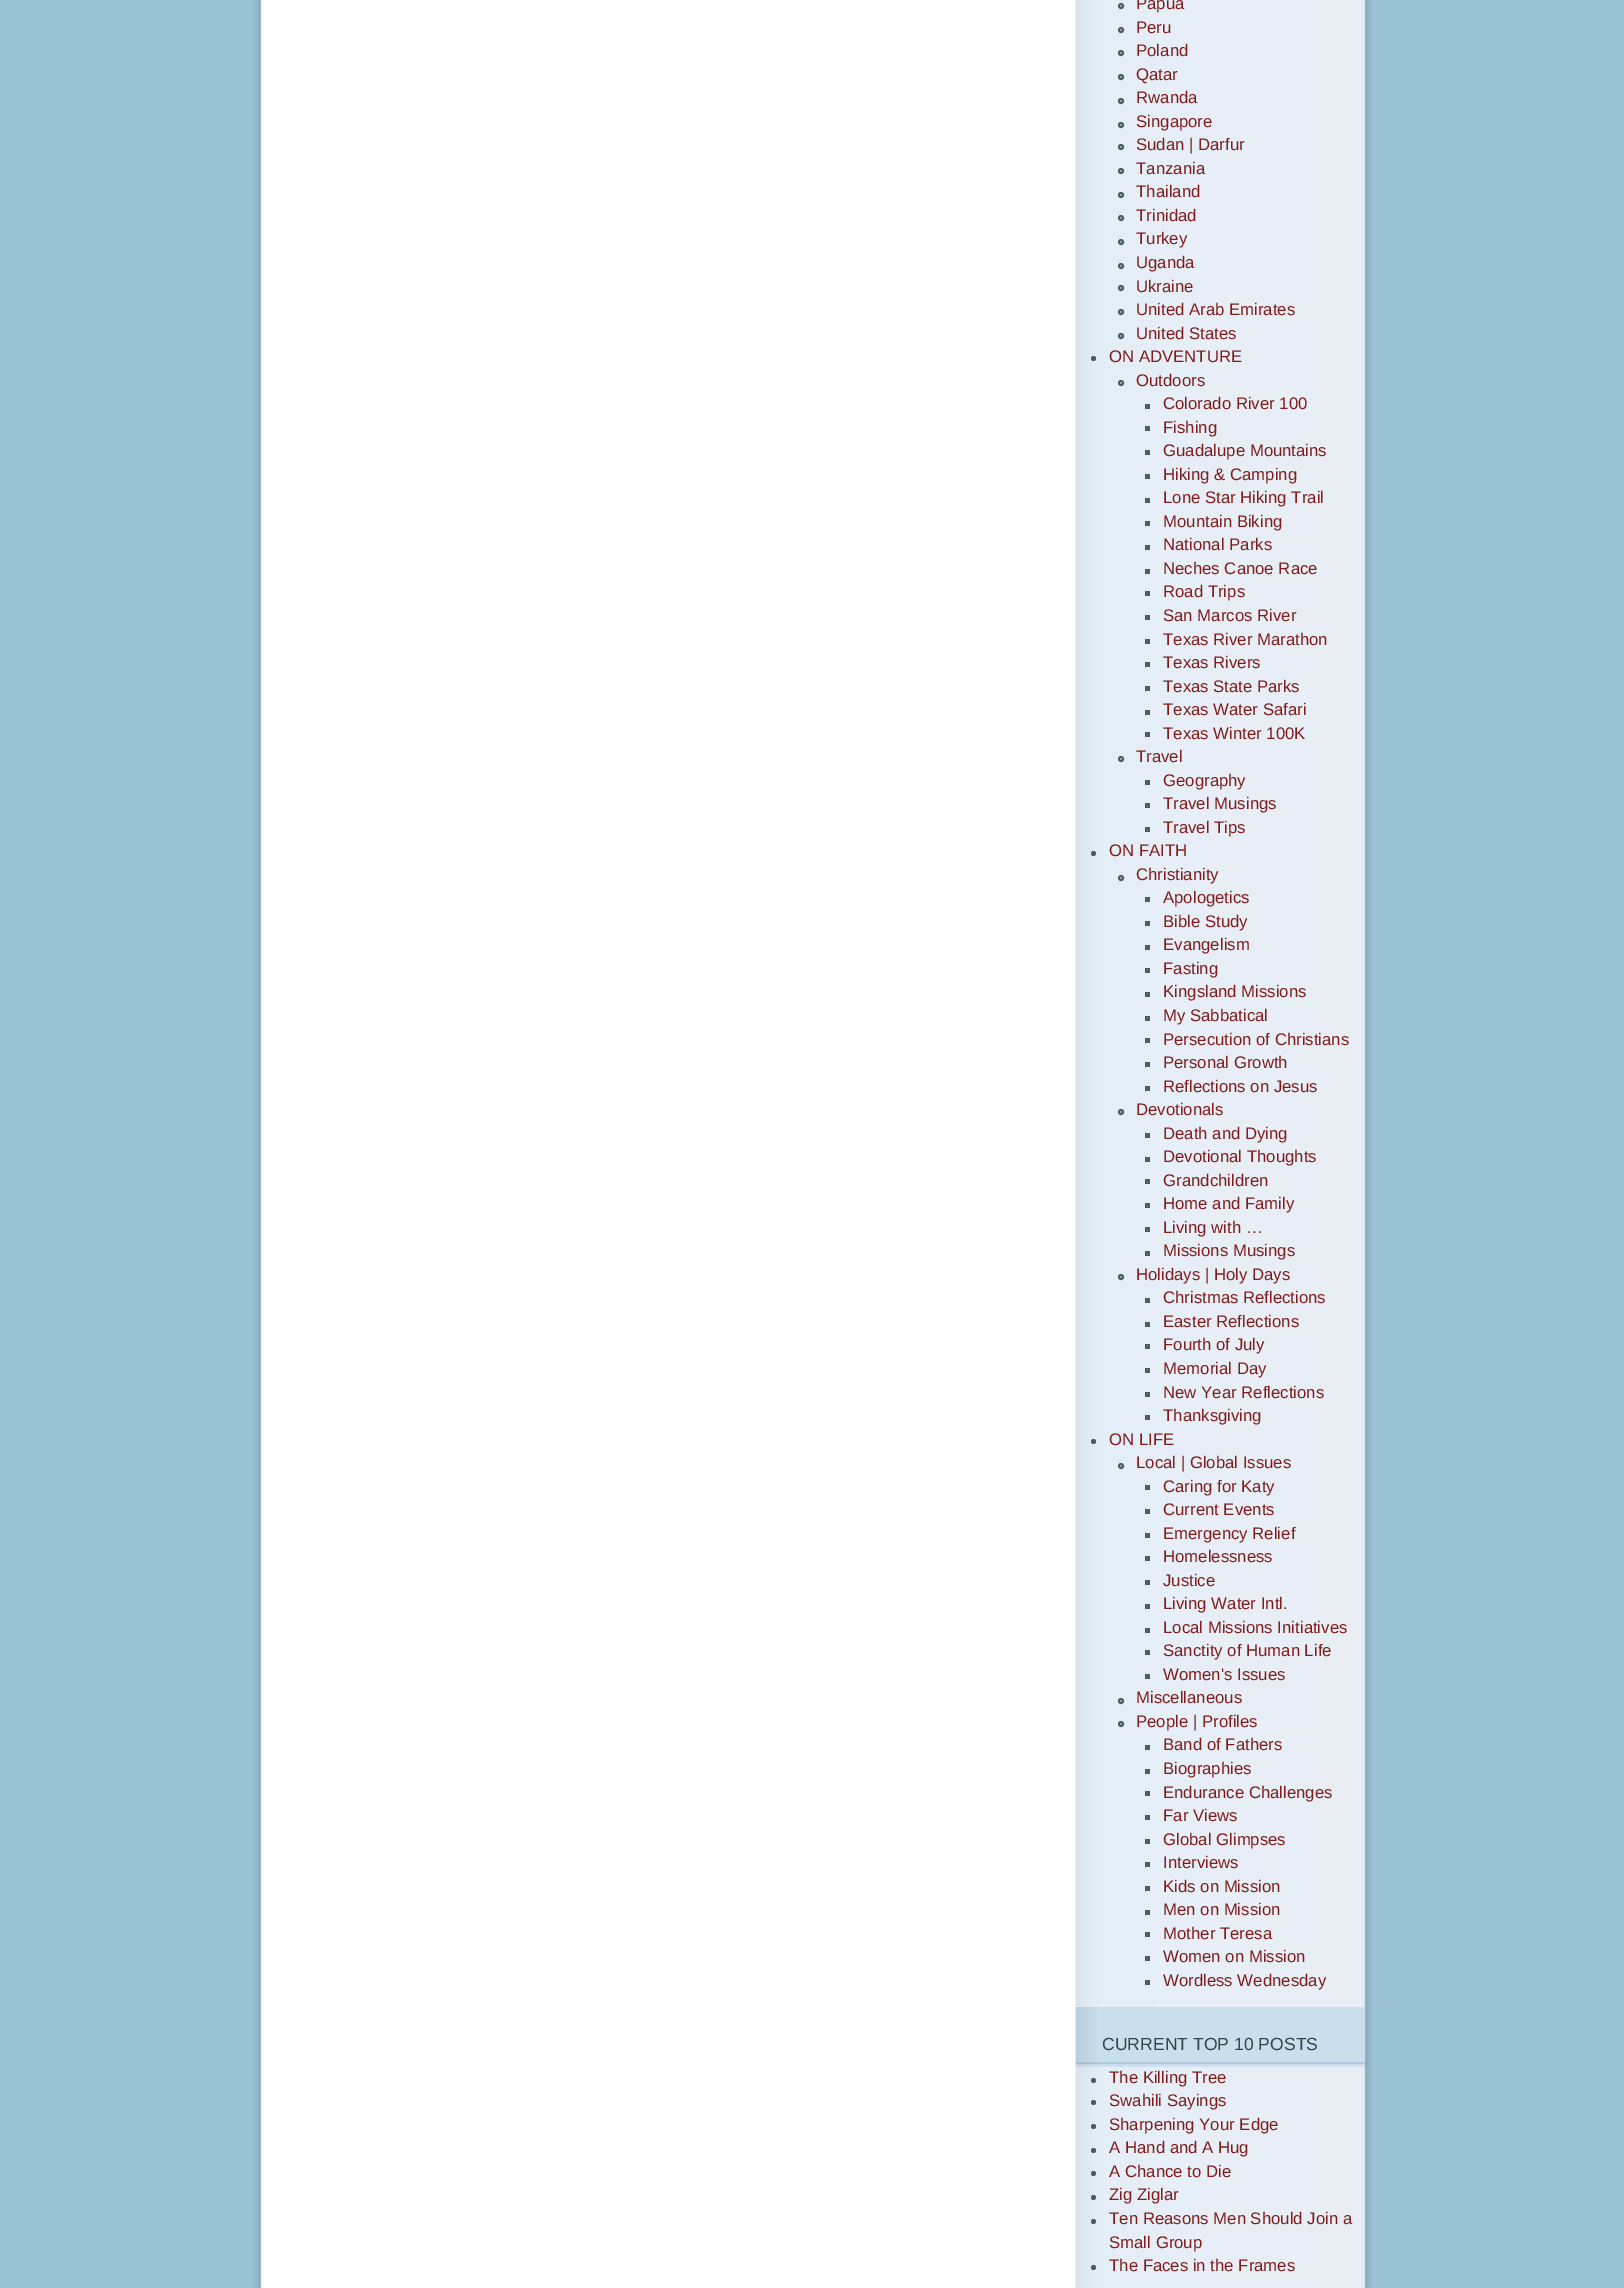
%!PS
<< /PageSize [1624 2288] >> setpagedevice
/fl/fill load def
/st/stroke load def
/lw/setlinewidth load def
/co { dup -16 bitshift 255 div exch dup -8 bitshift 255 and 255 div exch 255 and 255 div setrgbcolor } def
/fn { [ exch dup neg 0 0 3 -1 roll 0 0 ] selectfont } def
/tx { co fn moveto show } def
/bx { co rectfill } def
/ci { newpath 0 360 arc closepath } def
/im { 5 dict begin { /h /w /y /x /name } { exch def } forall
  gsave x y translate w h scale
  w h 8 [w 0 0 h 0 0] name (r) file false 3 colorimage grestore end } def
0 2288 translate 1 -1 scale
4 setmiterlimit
0 0 1624 2288 16#9BC3D5 bx
(media/1.raw) 253 0 1119 2288 im
16#4B5D67 co
2 lw
1121 6 2 ci st
1121 30 2 ci st
1121 53 2 ci st
1121 77 2 ci st
1121 101 2 ci st
1121 125 2 ci st
1121 147 2 ci st
1121 171 2 ci st
1121 195 2 ci st
1121 218 2 ci st
1121 242 2 ci st
1121 266 2 ci st
1121 288 2 ci st
1121 312 2 ci st
1121 336 2 ci st
1093.5 358.5 2.5 ci fl
1121 383 2 ci st
1145 404 5 5 16#4B5D67 bx
1145 426 5 5 16#4B5D67 bx
1145 450 5 5 16#4B5D67 bx
1145 474 5 5 16#4B5D67 bx
1145 498 5 5 16#4B5D67 bx
1145 521 5 5 16#4B5D67 bx
1145 545 5 5 16#4B5D67 bx
1145 569 5 5 16#4B5D67 bx
1145 591 5 5 16#4B5D67 bx
1145 615 5 5 16#4B5D67 bx
1145 639 5 5 16#4B5D67 bx
1145 662 5 5 16#4B5D67 bx
1145 686 5 5 16#4B5D67 bx
1145 710 5 5 16#4B5D67 bx
1145 732 5 5 16#4B5D67 bx
1121 759 2 ci st
1145 780 5 5 16#4B5D67 bx
1145 803 5 5 16#4B5D67 bx
1145 827 5 5 16#4B5D67 bx
1093.5 853.5 2.5 ci fl
1121 878 2 ci st
1145 897 5 5 16#4B5D67 bx
1145 921 5 5 16#4B5D67 bx
1145 945 5 5 16#4B5D67 bx
1145 968 5 5 16#4B5D67 bx
1145 992 5 5 16#4B5D67 bx
1145 1016 5 5 16#4B5D67 bx
1145 1038 5 5 16#4B5D67 bx
1145 1062 5 5 16#4B5D67 bx
1145 1086 5 5 16#4B5D67 bx
1121 1112 2 ci st
1145 1133 5 5 16#4B5D67 bx
1145 1157 5 5 16#4B5D67 bx
1145 1179 5 5 16#4B5D67 bx
1145 1203 5 5 16#4B5D67 bx
1145 1227 5 5 16#4B5D67 bx
1145 1251 5 5 16#4B5D67 bx
1121 1277 2 ci st
1145 1298 5 5 16#4B5D67 bx
1145 1322 5 5 16#4B5D67 bx
1145 1344 5 5 16#4B5D67 bx
1145 1368 5 5 16#4B5D67 bx
1145 1392 5 5 16#4B5D67 bx
1145 1415 5 5 16#4B5D67 bx
1093.5 1441.5 2.5 ci fl
1121 1466 2 ci st
1145 1485 5 5 16#4B5D67 bx
1145 1509 5 5 16#4B5D67 bx
1145 1533 5 5 16#4B5D67 bx
1145 1556 5 5 16#4B5D67 bx
1145 1580 5 5 16#4B5D67 bx
1145 1604 5 5 16#4B5D67 bx
1145 1628 5 5 16#4B5D67 bx
1145 1650 5 5 16#4B5D67 bx
1145 1674 5 5 16#4B5D67 bx
1121 1701 2 ci st
1121 1724 2 ci st
1145 1745 5 5 16#4B5D67 bx
1145 1769 5 5 16#4B5D67 bx
1145 1791 5 5 16#4B5D67 bx
1145 1815 5 5 16#4B5D67 bx
1145 1839 5 5 16#4B5D67 bx
1145 1862 5 5 16#4B5D67 bx
1145 1886 5 5 16#4B5D67 bx
1145 1910 5 5 16#4B5D67 bx
1145 1932 5 5 16#4B5D67 bx
1145 1956 5 5 16#4B5D67 bx
1145 1980 5 5 16#4B5D67 bx
(media/2.raw) 1075 2007 290 60 im
1093.5 2080.5 2.5 ci fl
1093.5 2102.5 2.5 ci fl
1093.5 2126.5 2.5 ci fl
1093.5 2150.5 2.5 ci fl
1093.5 2173.5 2.5 ci fl
1093.5 2197.5 2.5 ci fl
1093.5 2221.5 2.5 ci fl
1093.5 2267.5 2.5 ci fl
(Papua) 1136 9 /LiberationSans-Regular 16.75 16#7F1D1D tx
(Peru) 1136 33 /LiberationSans-Regular 16.75 16#7F1D1D tx
(Poland) 1136 56 /LiberationSans-Regular 16.75 16#7F1D1D tx
(Qatar) 1136 80 /LiberationSans-Regular 16.75 16#7F1D1D tx
(Rwanda) 1136 103 /LiberationSans-Regular 16.75 16#7F1D1D tx
(Singapore) 1136 127 /LiberationSans-Regular 16.75 16#7F1D1D tx
(Sudan | Darfur) 1136 150 /LiberationSans-Regular 16.75 16#7F1D1D tx
(Tanzania) 1136 174 /LiberationSans-Regular 16.75 16#7F1D1D tx
(Thailand) 1136 197 /LiberationSans-Regular 16.75 16#7F1D1D tx
(Trinidad) 1136 221 /LiberationSans-Regular 16.75 16#7F1D1D tx
(Turkey) 1136 244 /LiberationSans-Regular 16.75 16#7F1D1D tx
(Uganda) 1136 268 /LiberationSans-Regular 16.75 16#7F1D1D tx
(Ukraine) 1136 292 /LiberationSans-Regular 16.75 16#7F1D1D tx
(United Arab Emirates) 1136 315 /LiberationSans-Regular 16.75 16#7F1D1D tx
(United States) 1136 339 /LiberationSans-Regular 16.75 16#7F1D1D tx
(ON ADVENTURE) 1109 362 /LiberationSans-Regular 16.75 16#7F1D1D tx
(Outdoors) 1136 386 /LiberationSans-Regular 16.75 16#7F1D1D tx
(Colorado River 100) 1163 409 /LiberationSans-Regular 16.75 16#7F1D1D tx
(Fishing) 1163 433 /LiberationSans-Regular 16.75 16#7F1D1D tx
(Guadalupe Mountains) 1163 456 /LiberationSans-Regular 16.75 16#7F1D1D tx
(Hiking & Camping) 1163 480 /LiberationSans-Regular 16.75 16#7F1D1D tx
(Lone Star Hiking Trail) 1163 503 /LiberationSans-Regular 16.75 16#7F1D1D tx
(Mountain Biking) 1163 527 /LiberationSans-Regular 16.75 16#7F1D1D tx
(National Parks) 1163 550 /LiberationSans-Regular 16.75 16#7F1D1D tx
(Neches Canoe Race) 1163 574 /LiberationSans-Regular 16.75 16#7F1D1D tx
(Road Trips) 1163 597 /LiberationSans-Regular 16.75 16#7F1D1D tx
(San Marcos River) 1163 621 /LiberationSans-Regular 16.75 16#7F1D1D tx
(Texas River Marathon) 1163 645 /LiberationSans-Regular 16.75 16#7F1D1D tx
(Texas Rivers) 1163 668 /LiberationSans-Regular 16.75 16#7F1D1D tx
(Texas State Parks) 1163 692 /LiberationSans-Regular 16.75 16#7F1D1D tx
(Texas Water Safari) 1163 715 /LiberationSans-Regular 16.75 16#7F1D1D tx
(Texas Winter 100K) 1163 739 /LiberationSans-Regular 16.75 16#7F1D1D tx
(Travel) 1136 762 /LiberationSans-Regular 16.75 16#7F1D1D tx
(Geography) 1163 786 /LiberationSans-Regular 16.75 16#7F1D1D tx
(Travel Musings) 1163 809 /LiberationSans-Regular 16.75 16#7F1D1D tx
(Travel Tips) 1163 833 /LiberationSans-Regular 16.75 16#7F1D1D tx
(ON FAITH) 1109 856 /LiberationSans-Regular 16.75 16#7F1D1D tx
(Christianity) 1136 880 /LiberationSans-Regular 16.75 16#7F1D1D tx
(Apologetics) 1163 903 /LiberationSans-Regular 16.75 16#7F1D1D tx
(Bible Study) 1163 927 /LiberationSans-Regular 16.75 16#7F1D1D tx
(Evangelism) 1163 950 /LiberationSans-Regular 16.75 16#7F1D1D tx
(Fasting) 1163 974 /LiberationSans-Regular 16.75 16#7F1D1D tx
(Kingsland Missions) 1163 997 /LiberationSans-Regular 16.75 16#7F1D1D tx
(My Sabbatical) 1163 1021 /LiberationSans-Regular 16.75 16#7F1D1D tx
(Persecution of Christians) 1163 1045 /LiberationSans-Regular 16.75 16#7F1D1D tx
(Personal Growth) 1163 1068 /LiberationSans-Regular 16.75 16#7F1D1D tx
(Reflections on Jesus) 1163 1092 /LiberationSans-Regular 16.75 16#7F1D1D tx
(Devotionals) 1136 1115 /LiberationSans-Regular 16.75 16#7F1D1D tx
(Death and Dying) 1163 1139 /LiberationSans-Regular 16.75 16#7F1D1D tx
(Devotional Thoughts) 1163 1162 /LiberationSans-Regular 16.75 16#7F1D1D tx
(Grandchildren) 1163 1186 /LiberationSans-Regular 16.75 16#7F1D1D tx
(Home and Family) 1163 1209 /LiberationSans-Regular 16.75 16#7F1D1D tx
(Living with …) 1163 1233 /LiberationSans-Regular 16.75 16#7F1D1D tx
(Missions Musings) 1163 1256 /LiberationSans-Regular 16.75 16#7F1D1D tx
(Holidays | Holy Days) 1136 1280 /LiberationSans-Regular 16.75 16#7F1D1D tx
(Christmas Reflections) 1163 1303 /LiberationSans-Regular 16.75 16#7F1D1D tx
(Easter Reflections) 1163 1327 /LiberationSans-Regular 16.75 16#7F1D1D tx
(Fourth of July) 1163 1350 /LiberationSans-Regular 16.75 16#7F1D1D tx
(Memorial Day) 1163 1374 /LiberationSans-Regular 16.75 16#7F1D1D tx
(New Year Reflections) 1163 1398 /LiberationSans-Regular 16.75 16#7F1D1D tx
(Thanksgiving) 1163 1421 /LiberationSans-Regular 16.75 16#7F1D1D tx
(ON LIFE) 1109 1445 /LiberationSans-Regular 16.75 16#7F1D1D tx
(Local | Global Issues) 1136 1468 /LiberationSans-Regular 16.75 16#7F1D1D tx
(Caring for Katy) 1163 1492 /LiberationSans-Regular 16.75 16#7F1D1D tx
(Current Events) 1163 1515 /LiberationSans-Regular 16.75 16#7F1D1D tx
(Emergency Relief) 1163 1539 /LiberationSans-Regular 16.75 16#7F1D1D tx
(Homelessness) 1163 1562 /LiberationSans-Regular 16.75 16#7F1D1D tx
(Justice) 1163 1586 /LiberationSans-Regular 16.75 16#7F1D1D tx
(Living Water Intl.) 1163 1609 /LiberationSans-Regular 16.75 16#7F1D1D tx
(Local Missions Initiatives) 1163 1633 /LiberationSans-Regular 16.75 16#7F1D1D tx
(Sanctity of Human Life) 1163 1656 /LiberationSans-Regular 16.75 16#7F1D1D tx
(Women's Issues) 1163 1680 /LiberationSans-Regular 16.75 16#7F1D1D tx
(Miscellaneous) 1136 1703 /LiberationSans-Regular 16.75 16#7F1D1D tx
(People | Profiles) 1136 1727 /LiberationSans-Regular 16.75 16#7F1D1D tx
(Band of Fathers) 1163 1750 /LiberationSans-Regular 16.75 16#7F1D1D tx
(Biographies) 1163 1774 /LiberationSans-Regular 16.75 16#7F1D1D tx
(Endurance Challenges) 1163 1798 /LiberationSans-Regular 16.75 16#7F1D1D tx
(Far Views) 1163 1821 /LiberationSans-Regular 16.75 16#7F1D1D tx
(Global Glimpses) 1163 1845 /LiberationSans-Regular 16.75 16#7F1D1D tx
(Interviews) 1163 1868 /LiberationSans-Regular 16.75 16#7F1D1D tx
(Kids on Mission) 1163 1892 /LiberationSans-Regular 16.75 16#7F1D1D tx
(Men on Mission) 1163 1915 /LiberationSans-Regular 16.75 16#7F1D1D tx
(Mother Teresa) 1163 1939 /LiberationSans-Regular 16.75 16#7F1D1D tx
(Women on Mission) 1163 1962 /LiberationSans-Regular 16.75 16#7F1D1D tx
(Wordless Wednesday) 1163 1986 /LiberationSans-Regular 16.75 16#7F1D1D tx
(CURRENT TOP 10 POSTS) 1102 2050 /LiberationSans-Regular 17.6 16#32474B tx
(The Killing Tree) 1109 2083 /LiberationSans-Regular 16.75 16#7F1D1D tx
(Swahili Sayings) 1109 2106 /LiberationSans-Regular 16.75 16#7F1D1D tx
(Sharpening Your Edge) 1109 2130 /LiberationSans-Regular 16.75 16#7F1D1D tx
(A Hand and A Hug) 1109 2153 /LiberationSans-Regular 16.75 16#7F1D1D tx
(A Chance to Die) 1109 2177 /LiberationSans-Regular 16.75 16#7F1D1D tx
(Zig Ziglar) 1109 2200 /LiberationSans-Regular 16.75 16#7F1D1D tx
(Ten Reasons Men Should Join a) 1109 2224 /LiberationSans-Regular 16.75 16#7F1D1D tx
(Small Group) 1109 2248 /LiberationSans-Regular 16.75 16#7F1D1D tx
(The Faces in the Frames) 1109 2271 /LiberationSans-Regular 16.75 16#7F1D1D tx
showpage
